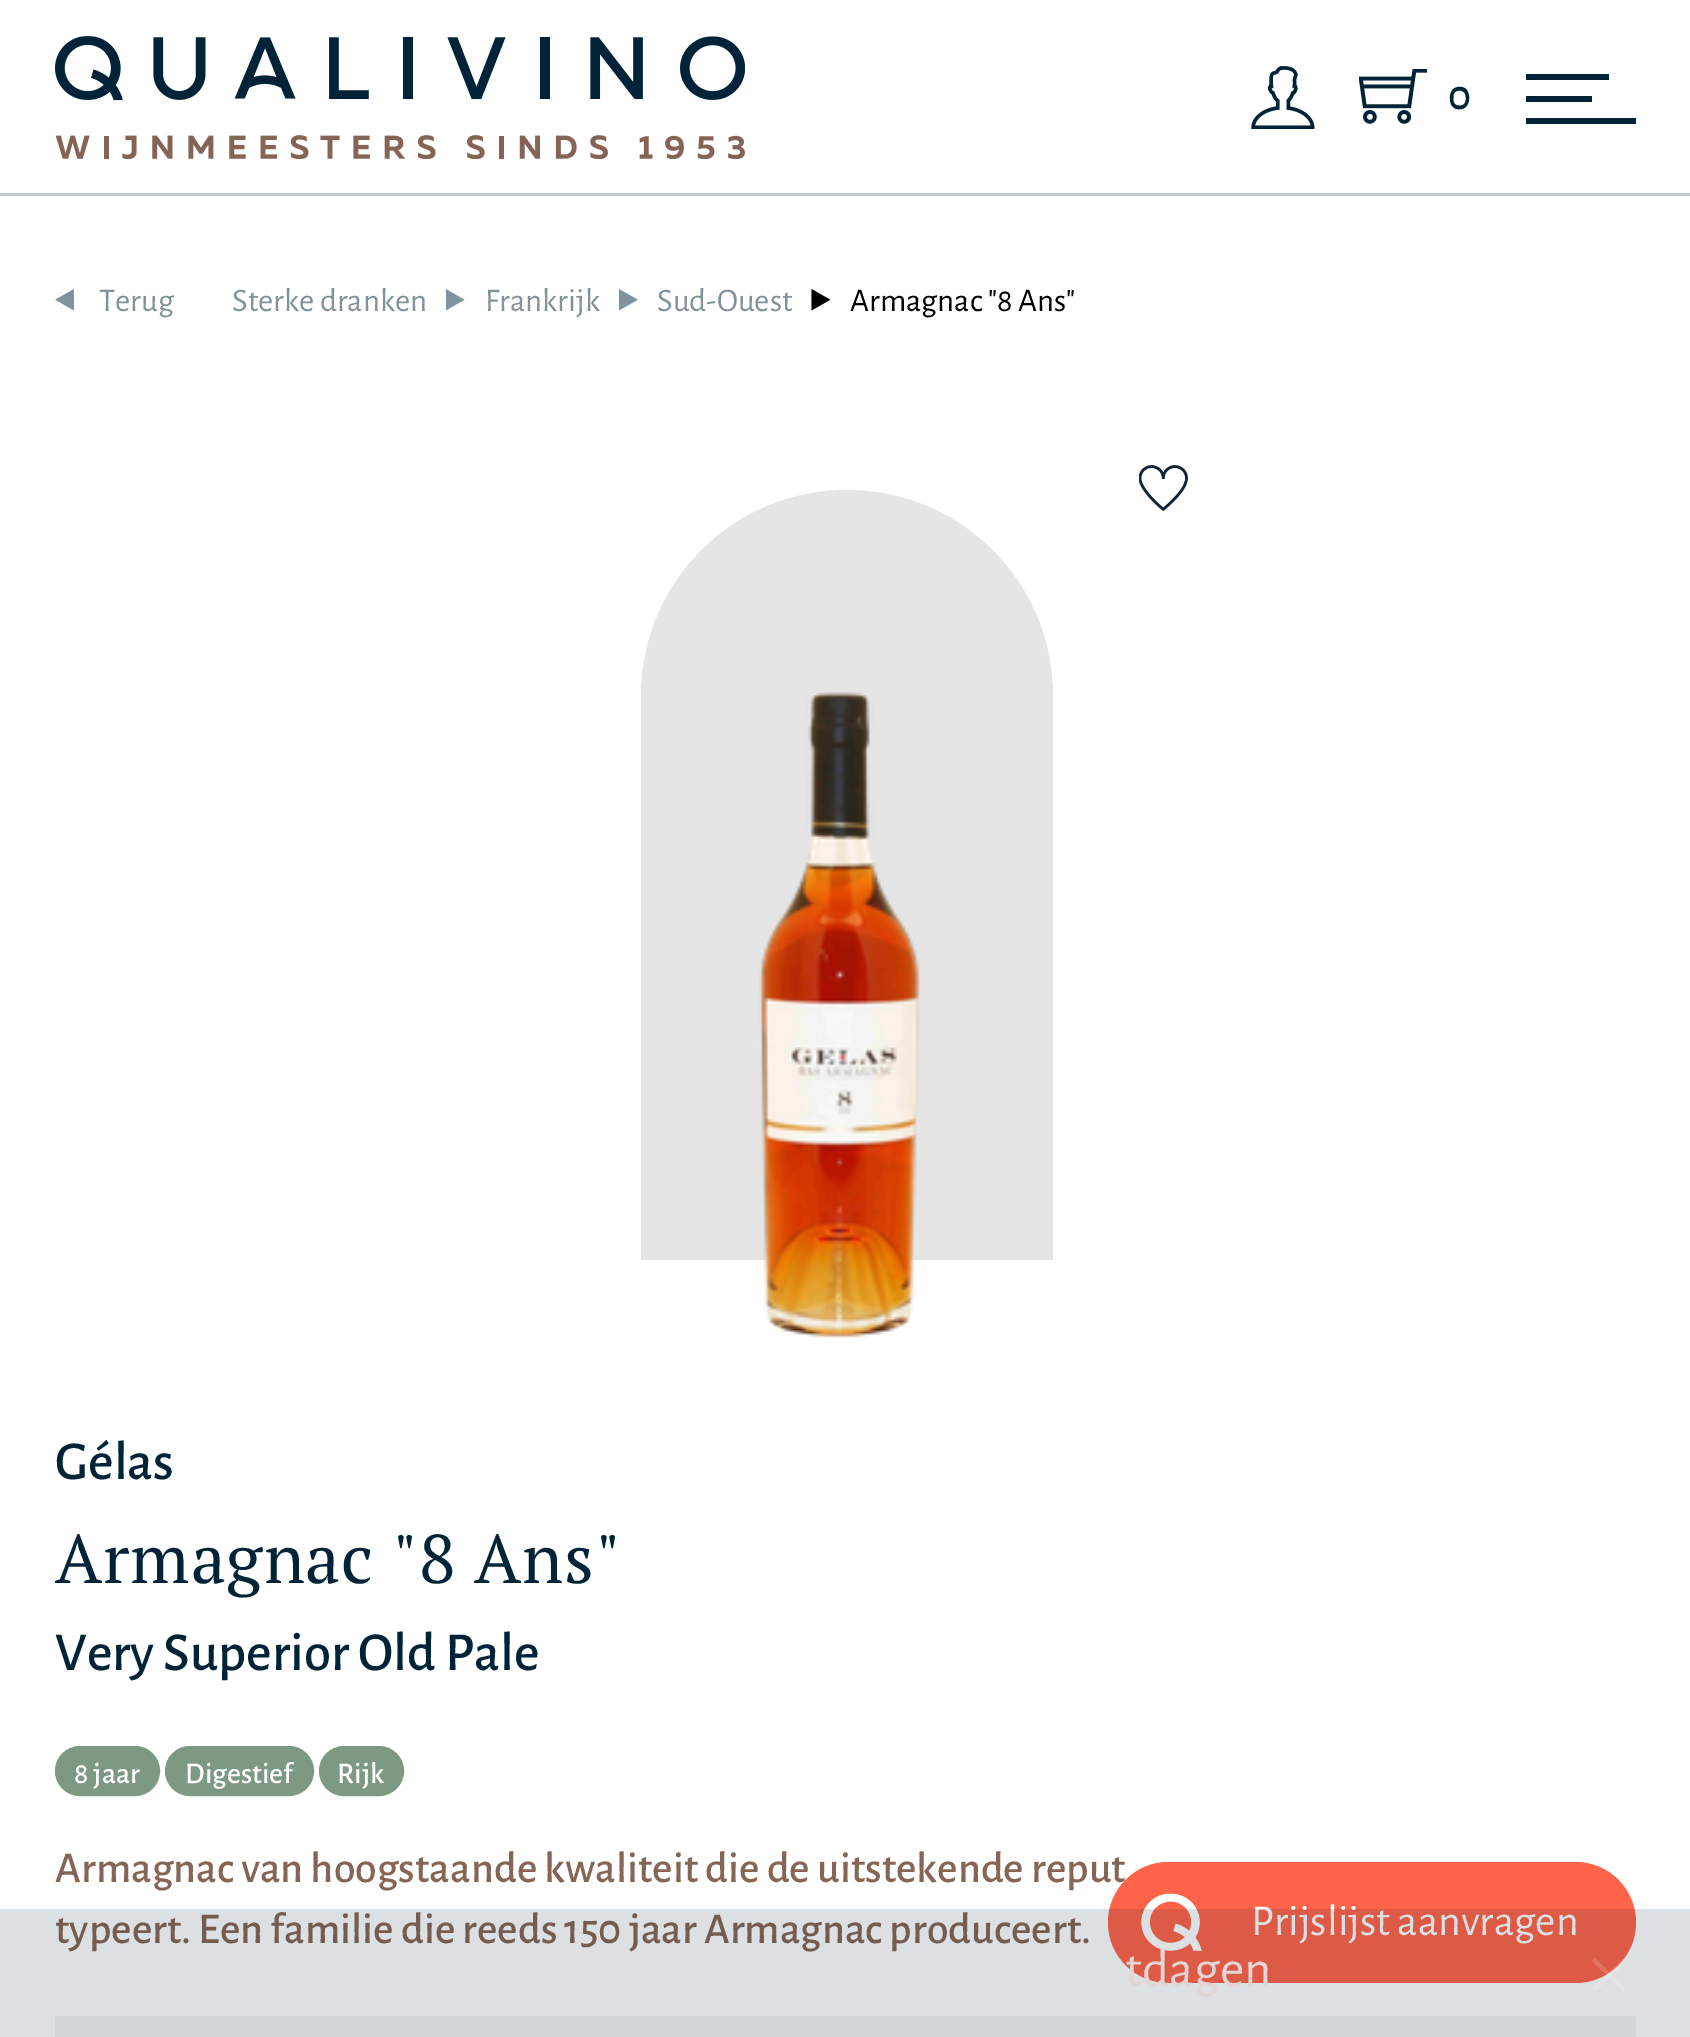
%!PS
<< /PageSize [1690 2037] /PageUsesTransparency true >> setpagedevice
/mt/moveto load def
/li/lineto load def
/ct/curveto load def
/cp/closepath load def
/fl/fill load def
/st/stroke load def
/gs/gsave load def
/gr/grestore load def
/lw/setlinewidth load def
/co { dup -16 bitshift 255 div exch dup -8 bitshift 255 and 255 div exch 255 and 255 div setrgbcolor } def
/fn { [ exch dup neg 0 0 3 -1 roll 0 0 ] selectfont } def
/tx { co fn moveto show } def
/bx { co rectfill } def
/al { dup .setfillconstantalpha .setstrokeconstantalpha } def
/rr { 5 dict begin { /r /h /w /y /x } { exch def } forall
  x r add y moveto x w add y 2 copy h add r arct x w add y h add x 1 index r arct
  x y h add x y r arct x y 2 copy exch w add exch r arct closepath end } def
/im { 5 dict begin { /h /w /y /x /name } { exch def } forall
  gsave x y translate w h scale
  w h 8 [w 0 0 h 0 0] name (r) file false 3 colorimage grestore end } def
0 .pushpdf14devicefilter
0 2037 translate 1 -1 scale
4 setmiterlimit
0 0 1690 2037 16#FFFFFF bx
0 193 1690 3 16#C1C8CC bx
(media/1.raw) 55 36 690 124 im
(media/2.raw) 1251 66 64 63 im
(media/3.raw) 1359 69 68 55 im
1526 74 83 6 16#002437 bx
1526 96 66 6 16#002437 bx
1526 118 110 6 16#002437 bx
(media/4.raw) 55 289 19 22 im
(media/5.raw) 446 289 19 22 im
(media/6.raw) 619 289 19 22 im
(media/7.raw) 811 289 20 22 im
16#E5E5E5 co
847 490 mt 961 490 1053 582 1053 696 ct 1053 1260 li 641 1260 li 641 696 li 641 582 733 490 847 490 ct cp fl
(media/8.raw) 758 692 162 646 im
(media/9.raw) 1139 465 49 47 im
16#7D9983 co
56.5 1747.5 102 47 23.5 rr gs fl gr
3 lw
st
166.5 1747.5 146 47 23.5 rr gs fl gr
st
320.5 1747.5 82 47 23.5 rr gs fl gr
st
55 2016 1581 21 16#F2F4F5 bx
(0) 1448 109 /AlegreyaSans-Medium 44 16#002437 tx
(Terug) 99 311 /AlegreyaSans-Regular 33 16#80929B tx
(Sterke dranken) 232 311 /AlegreyaSans-Regular 33 16#80929B tx
(Frankrijk) 485 311 /AlegreyaSans-Regular 33 16#80929B tx
(Sud-Ouest) 657 311 /AlegreyaSans-Regular 33 16#80929B tx
(Armagnac "8 Ans") 850 311 /AlegreyaSans-Regular 33 16#000000 tx
(Gélas) 55 1479 /AlegreyaSans-Medium 55 16#002437 tx
/PTSerif-Regular 68.75 fn
55 1583 mt 1 0 (Armagnac "8 Ans") ashow
(Very Superior Old Pale) 55 1670 /AlegreyaSans-Medium 55 16#002437 tx
(8 jaar) 74 1783 /AlegreyaSans-Medium 30 16#FFFFFF tx
(Digestief) 185 1783 /AlegreyaSans-Medium 30 16#FFFFFF tx
(Rijk) 337 1783 /AlegreyaSans-Medium 30 16#FFFFFF tx
(Armagnac van hoogstaande kwaliteit die de uitstekende reput) 55 1882 /AlegreyaSans-Medium 44 16#856556 tx
(typeert. Een familie die reeds 150 jaar Armagnac produceert.) 55 1943 /AlegreyaSans-Medium 44 16#856556 tx
16#FF6349 co
1108 1862 528 121 60.5 rr fl
(media/10.raw) 1141 1893 61 58 im
(Prijslijst aanvragen) 1251 1935 /AlegreyaSans-Regular 44 16#FFFFFF tx
0.14 al
0 1909 1690 128 16#112434 bx
1 al
(tdagen) 1125 1986 /AlegreyaSans-Regular 53 16#E2D5D4 tx
gs
1592 1958 33 33 rectclip
0.14 al
16#FFFFFF co
4.1 lw
1 setlinejoin
1593.5 1990.5 mt 1625 1959.5 li st
1593.5 1959.5 mt 1625 1990.5 li st
gr
.poppdf14devicefilter showpage
